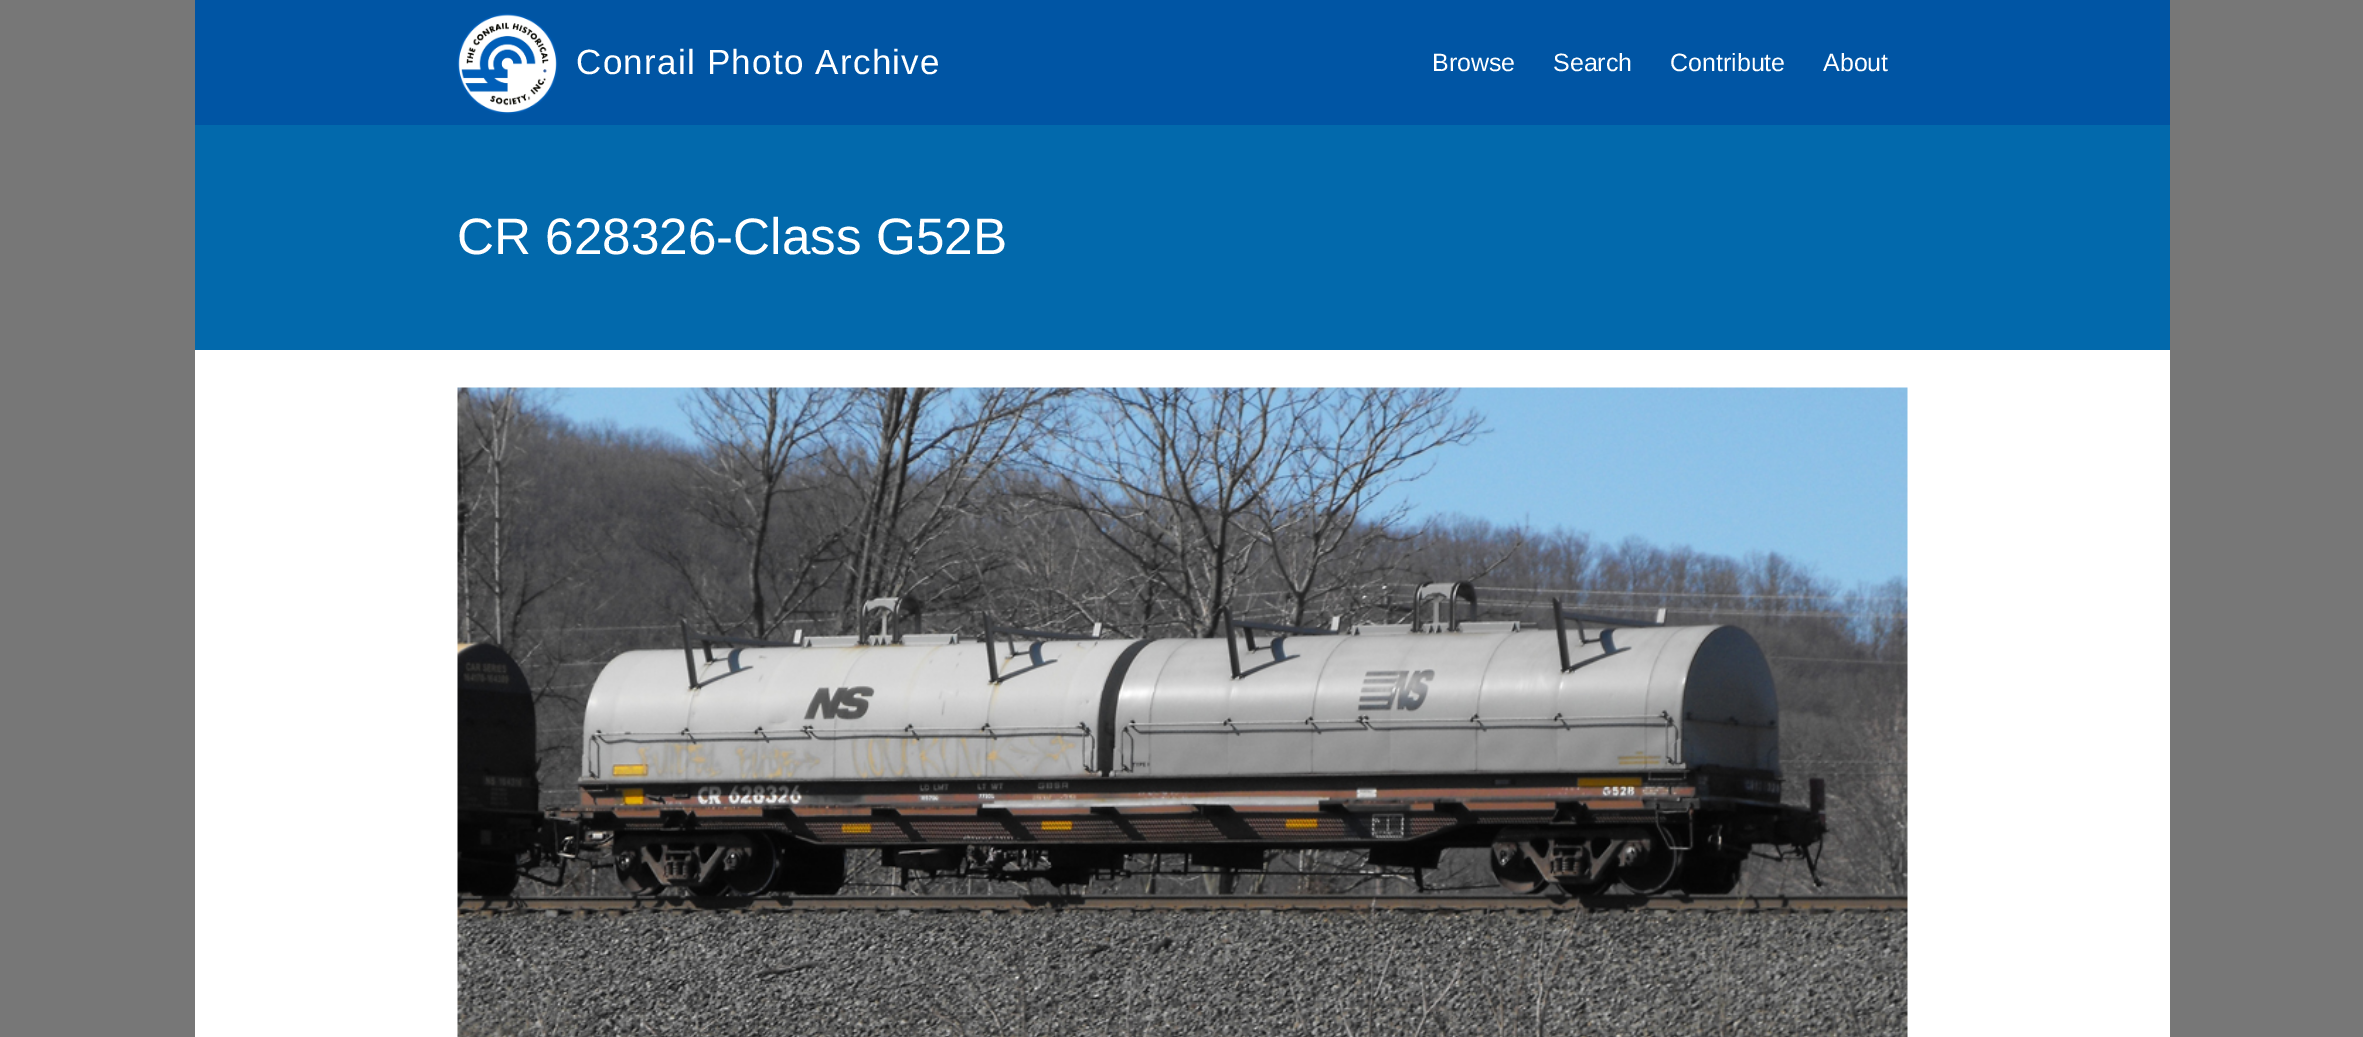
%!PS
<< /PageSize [2363 1037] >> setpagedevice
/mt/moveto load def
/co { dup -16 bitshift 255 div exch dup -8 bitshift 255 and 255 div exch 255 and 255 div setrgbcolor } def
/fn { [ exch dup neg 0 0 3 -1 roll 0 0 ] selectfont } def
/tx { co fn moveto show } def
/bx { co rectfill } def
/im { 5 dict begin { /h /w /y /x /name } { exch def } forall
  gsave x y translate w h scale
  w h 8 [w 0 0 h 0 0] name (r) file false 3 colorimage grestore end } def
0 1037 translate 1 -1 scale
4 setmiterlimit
0 0 2363 1037 16#777777 bx
195 350 1975 687 16#FFFFFF bx
195 0 1975 125 16#0055A4 bx
(media/1.raw) 457 13 101 101 im
195 125 1975 225 16#0269AC bx
(media/2.raw) 457 387 1451 650 im
/LiberationSans-Regular 35 fn
16#FFFFFF co
576 74 mt 1.25 0 (Conrail Photo Archive) ashow
(Browse) 1432 71 /LiberationSans-Regular 25 16#FFFFFF tx
(Search) 1553 71 /LiberationSans-Regular 25 16#FFFFFF tx
(Contribute) 1670 71 /LiberationSans-Regular 25 16#FFFFFF tx
(About) 1823 71 /LiberationSans-Regular 25 16#FFFFFF tx
(CR 628326-Class G52B) 457 254 /LiberationSans-Regular 51.25 16#FFFFFF tx
showpage
